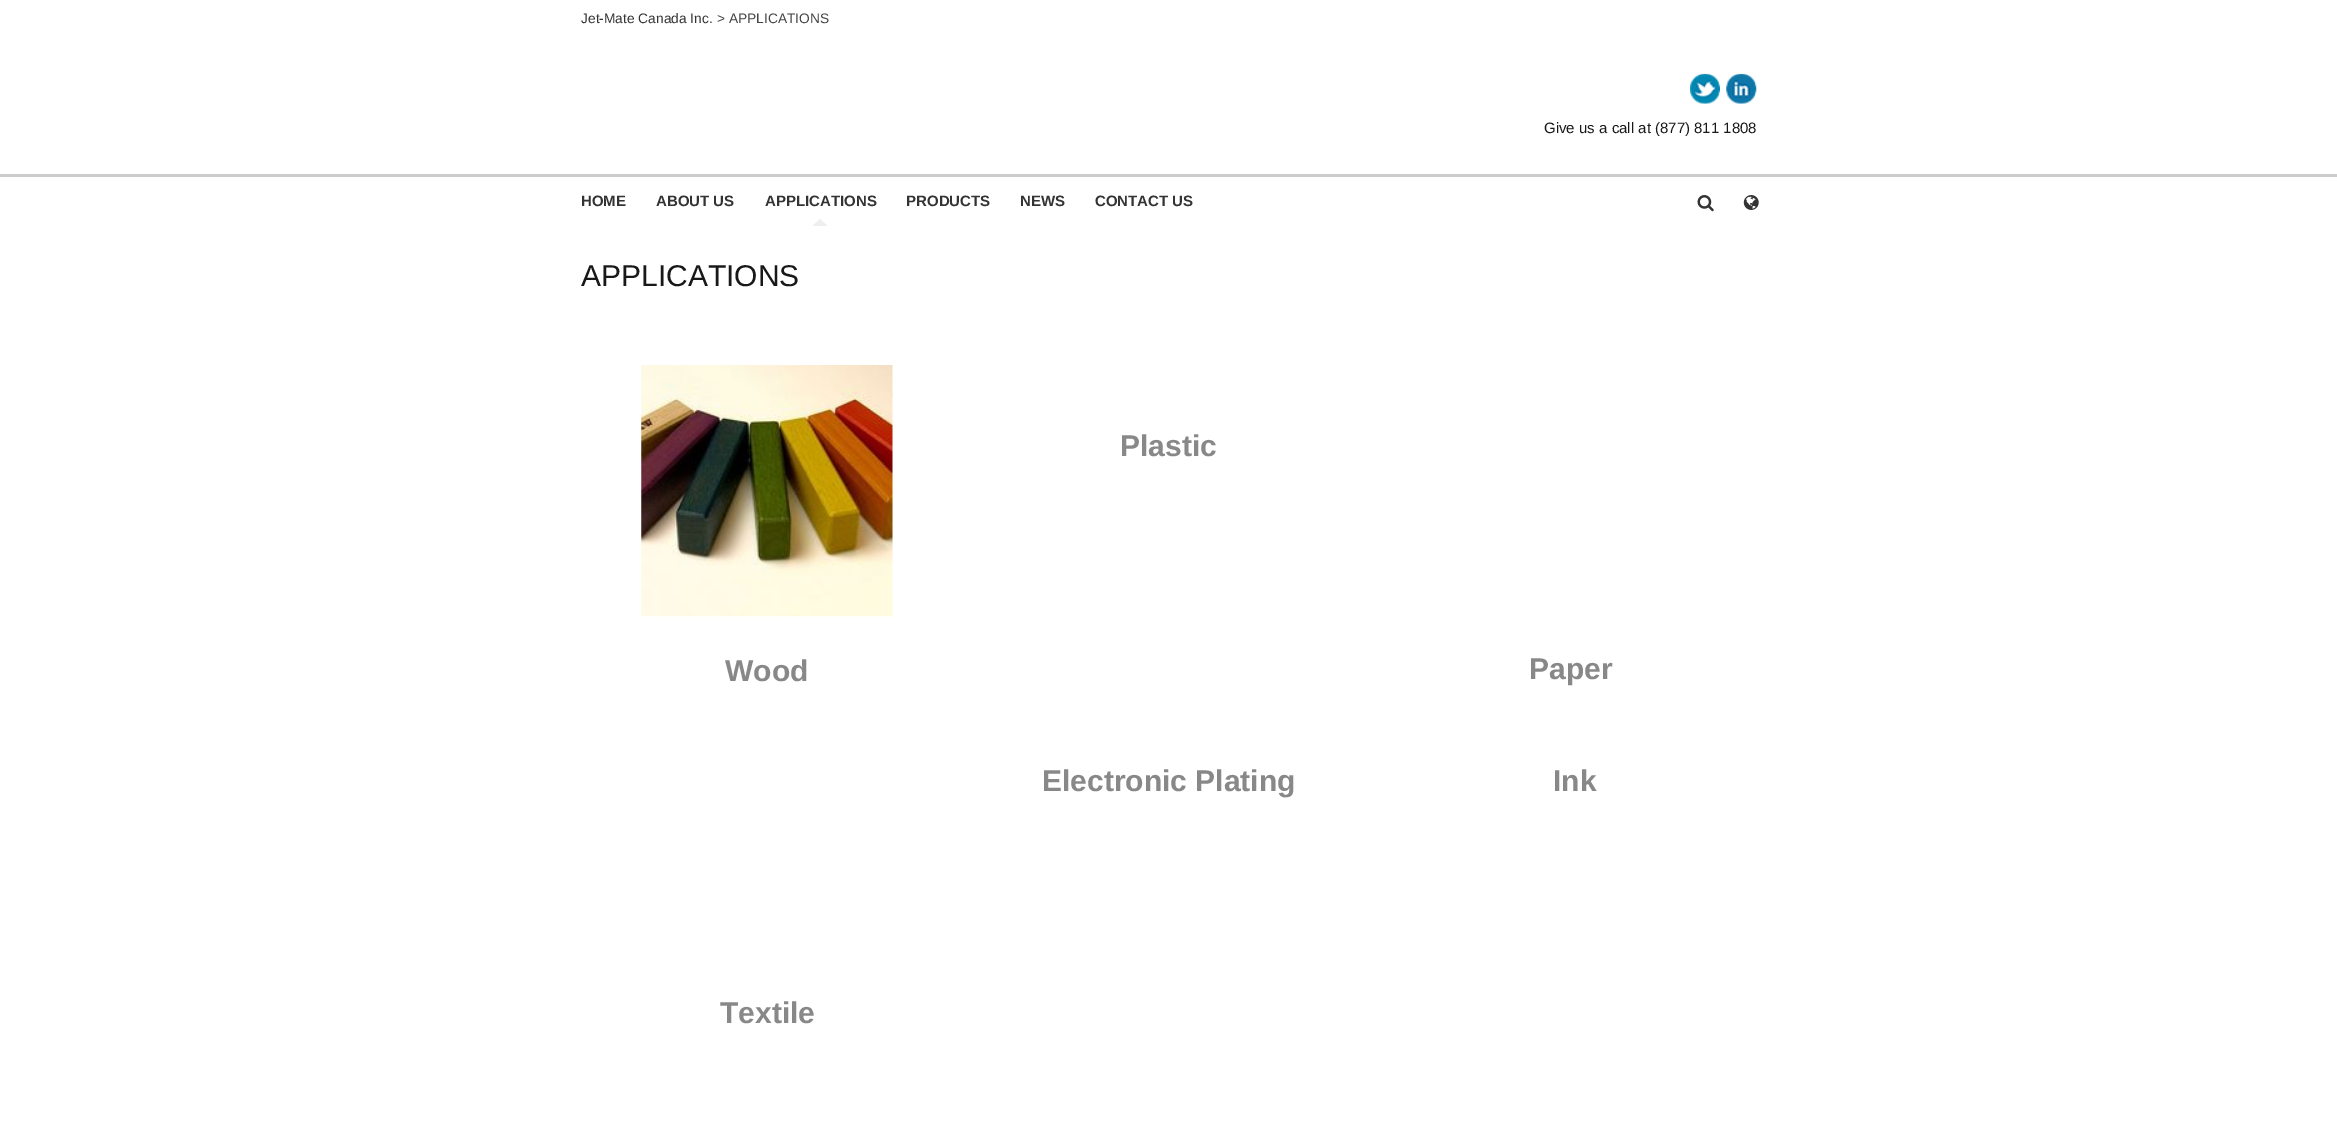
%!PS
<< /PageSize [2337 1128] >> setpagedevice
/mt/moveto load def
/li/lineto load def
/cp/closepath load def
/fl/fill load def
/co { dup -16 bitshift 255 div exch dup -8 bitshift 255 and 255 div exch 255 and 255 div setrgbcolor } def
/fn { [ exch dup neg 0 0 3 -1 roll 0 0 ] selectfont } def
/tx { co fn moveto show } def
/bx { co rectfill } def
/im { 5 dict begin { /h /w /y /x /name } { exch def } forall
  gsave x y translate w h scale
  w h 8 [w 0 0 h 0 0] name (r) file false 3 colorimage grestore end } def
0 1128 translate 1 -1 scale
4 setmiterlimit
0 0 2337 1128 16#FFFFFF bx
(media/1.raw) 1690 73 30 31 im
(media/2.raw) 1726 73 31 31 im
0 174 2337 3 16#CCCCCC bx
16#EEEEEE co
827.5 226 mt 812.5 226 li 820 219 li cp fl
(media/3.raw) 1697 195 17 17 im
(media/4.raw) 1743 195 16 15 im
(media/5.raw) 641 365 252 252 im
(Jet-Mate Canada Inc.) 581 23 /LiberationSans-Regular 13.75 16#333333 tx
(> APPLICATIONS) 717 23 /LiberationSans-Regular 13.75 16#444444 tx
(Give us a call at \(877\) 811 1808) 1544 133 /LiberationSans-Regular 15 16#181818 tx
(HOME) 581 206 /LiberationSans-Bold 15 16#333333 tx
(ABOUT US) 656 206 /LiberationSans-Bold 15 16#333333 tx
(APPLICATIONS) 765 206 /LiberationSans-Bold 15 16#333333 tx
(PRODUCTS) 906 206 /LiberationSans-Bold 15 16#333333 tx
(NEWS) 1020 206 /LiberationSans-Bold 15 16#333333 tx
(CONTACT US) 1095 206 /LiberationSans-Bold 15 16#333333 tx
(APPLICATIONS) 581 286 /LiberationSans-Regular 30 16#181818 tx
(Plastic) 1120 456 /LiberationSans-Bold 30 16#888888 tx
(Wood) 725 681 /LiberationSans-Bold 30 16#888888 tx
(Paper) 1529 679 /LiberationSans-Bold 30 16#888888 tx
(Electronic Plating) 1042 791 /LiberationSans-Bold 30 16#888888 tx
(Ink) 1553 791 /LiberationSans-Bold 30 16#888888 tx
(Textile) 720 1023 /LiberationSans-Bold 30 16#888888 tx
showpage
